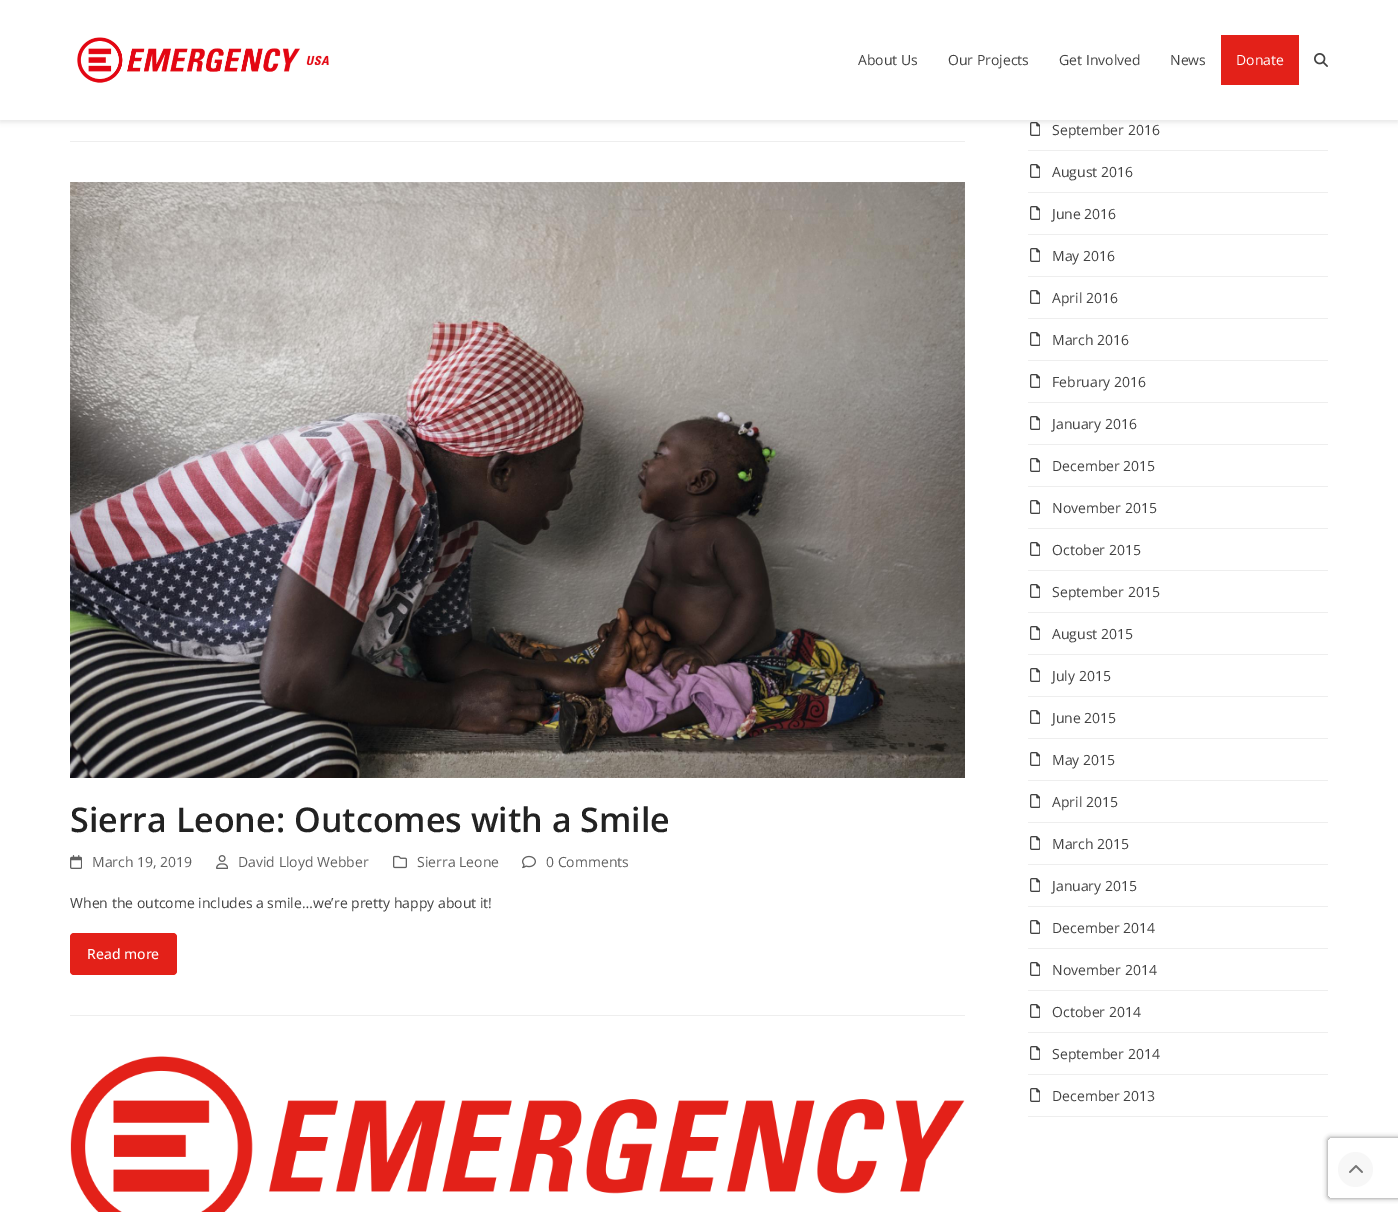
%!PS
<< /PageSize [1398 1212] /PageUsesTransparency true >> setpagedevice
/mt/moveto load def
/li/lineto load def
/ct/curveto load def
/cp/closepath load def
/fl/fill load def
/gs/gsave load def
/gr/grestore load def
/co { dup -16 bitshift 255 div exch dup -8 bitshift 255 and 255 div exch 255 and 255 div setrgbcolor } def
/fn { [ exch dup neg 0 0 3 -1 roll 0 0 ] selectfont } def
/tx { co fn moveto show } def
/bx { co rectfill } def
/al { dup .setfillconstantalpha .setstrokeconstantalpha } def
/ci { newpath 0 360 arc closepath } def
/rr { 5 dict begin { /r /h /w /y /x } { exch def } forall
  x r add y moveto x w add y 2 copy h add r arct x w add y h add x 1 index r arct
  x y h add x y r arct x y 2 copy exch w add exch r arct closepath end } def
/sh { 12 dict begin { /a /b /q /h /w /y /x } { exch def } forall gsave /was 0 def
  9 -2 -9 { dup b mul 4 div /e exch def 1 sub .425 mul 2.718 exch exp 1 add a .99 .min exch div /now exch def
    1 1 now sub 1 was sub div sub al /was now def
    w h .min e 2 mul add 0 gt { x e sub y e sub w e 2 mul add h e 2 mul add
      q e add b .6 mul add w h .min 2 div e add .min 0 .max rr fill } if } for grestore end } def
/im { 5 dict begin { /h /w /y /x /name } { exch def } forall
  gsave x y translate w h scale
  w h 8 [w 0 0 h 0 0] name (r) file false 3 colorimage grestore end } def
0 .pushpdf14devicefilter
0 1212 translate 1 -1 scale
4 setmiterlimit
0 0 1398 1212 16#FFFFFF bx
(media/9.raw) 1030 122 10 14 im
16#000000 co
0 2 1398 120 0 2.5 .1 sh
0 0 1398 120 16#FFFFFF bx
(media/1.raw) 77 37 252 46 im
1221 35 78 50 16#E32119 bx
(media/2.raw) 1314 53 14 14 im
70 141 895 1 16#EEEEEE bx
(media/3.raw) 70 182 895 596 im
(media/4.raw) 70 855 12 14 im
(media/5.raw) 216 855 12 14 im
(media/6.raw) 393 855 14 14 im
(media/7.raw) 522 855 14 14 im
16#E32119 co
70 933 107 42 4 rr fl
70 1015 895 1 16#EEEEEE bx
(media/8.raw) 70 1056 895 156 im
1028 150 300 1 16#EEEEEE bx
1028 192 300 1 16#EEEEEE bx
(media/9.raw) 1030 164 10 14 im
1028 234 300 1 16#EEEEEE bx
(media/9.raw) 1030 206 10 14 im
1028 276 300 1 16#EEEEEE bx
(media/9.raw) 1030 248 10 14 im
1028 318 300 1 16#EEEEEE bx
(media/9.raw) 1030 290 10 14 im
1028 360 300 1 16#EEEEEE bx
(media/9.raw) 1030 332 10 14 im
1028 402 300 1 16#EEEEEE bx
(media/9.raw) 1030 374 10 14 im
1028 444 300 1 16#EEEEEE bx
(media/9.raw) 1030 416 10 14 im
1028 486 300 1 16#EEEEEE bx
(media/9.raw) 1030 458 10 14 im
1028 528 300 1 16#EEEEEE bx
(media/9.raw) 1030 500 10 14 im
1028 570 300 1 16#EEEEEE bx
(media/9.raw) 1030 542 10 14 im
1028 612 300 1 16#EEEEEE bx
(media/9.raw) 1030 584 10 14 im
1028 654 300 1 16#EEEEEE bx
(media/9.raw) 1030 626 10 14 im
1028 696 300 1 16#EEEEEE bx
(media/9.raw) 1030 668 10 14 im
1028 738 300 1 16#EEEEEE bx
(media/9.raw) 1030 710 10 14 im
1028 780 300 1 16#EEEEEE bx
(media/9.raw) 1030 752 10 14 im
1028 822 300 1 16#EEEEEE bx
(media/9.raw) 1030 794 10 14 im
1028 864 300 1 16#EEEEEE bx
(media/9.raw) 1030 836 10 14 im
1028 906 300 1 16#EEEEEE bx
(media/9.raw) 1030 878 10 14 im
1028 948 300 1 16#EEEEEE bx
(media/9.raw) 1030 920 10 14 im
1028 990 300 1 16#EEEEEE bx
(media/9.raw) 1030 962 10 14 im
1028 1032 300 1 16#EEEEEE bx
(media/9.raw) 1030 1004 10 14 im
1028 1074 300 1 16#EEEEEE bx
(media/9.raw) 1030 1046 10 14 im
1028 1116 300 1 16#EEEEEE bx
(media/9.raw) 1030 1088 10 14 im
gs
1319 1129 mt 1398 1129 li 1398 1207 li 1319 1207 li cp 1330 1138 mt 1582 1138 li 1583 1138 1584 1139 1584 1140 ct 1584 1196 li 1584 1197 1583 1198 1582 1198 ct 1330 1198 li 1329 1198 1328 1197 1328 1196 ct 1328 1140 li 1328 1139 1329 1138 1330 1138 ct cp eoclip newpath
16#808080 co
1328 1138 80 60 2 2.5 1 sh
gr
16#F7F7F7 co
1355.5 1169.5 17.5 ci fl
(media/10.raw) 1349 1165 14 8 im
(About Us) 858 65 /OpenSans-Regular 14 16#424242 tx
(Our Projects) 948 65 /OpenSans-Regular 14 16#424242 tx
(Get Involved) 1059 65 /OpenSans-Regular 14 16#424242 tx
(News) 1170 65 /OpenSans-Regular 14 16#424242 tx
(Donate) 1236 65 /OpenSans-Regular 14 16#FFFFFF tx
(Sierra Leone: Outcomes with a Smile) 70 832 /OpenSans-SemiBold 34 16#222222 tx
(March 19, 2019) 92 867 /OpenSans-Regular 14 16#616161 tx
(David Lloyd Webber) 238 867 /OpenSans-Regular 14 16#616161 tx
(Sierra Leone) 417 867 /OpenSans-Regular 14 16#616161 tx
(0 Comments) 546 867 /OpenSans-Regular 14 16#616161 tx
(When the outcome includes a smile…we’re pretty happy about it!) 70 908 /OpenSans-Regular 14 16#424242 tx
(Read more) 87 959 /OpenSans-Medium 14 16#FFFFFF tx
(September 2016) 1052 135 /OpenSans-Regular 14 16#424242 tx
(August 2016) 1052 177 /OpenSans-Regular 14 16#424242 tx
(June 2016) 1052 219 /OpenSans-Regular 14 16#424242 tx
(May 2016) 1052 261 /OpenSans-Regular 14 16#424242 tx
(April 2016) 1052 303 /OpenSans-Regular 14 16#424242 tx
(March 2016) 1052 345 /OpenSans-Regular 14 16#424242 tx
(February 2016) 1052 387 /OpenSans-Regular 14 16#424242 tx
(January 2016) 1052 429 /OpenSans-Regular 14 16#424242 tx
(December 2015) 1052 471 /OpenSans-Regular 14 16#424242 tx
(November 2015) 1052 513 /OpenSans-Regular 14 16#424242 tx
(October 2015) 1052 555 /OpenSans-Regular 14 16#424242 tx
(September 2015) 1052 597 /OpenSans-Regular 14 16#424242 tx
(August 2015) 1052 639 /OpenSans-Regular 14 16#424242 tx
(July 2015) 1052 681 /OpenSans-Regular 14 16#424242 tx
(June 2015) 1052 723 /OpenSans-Regular 14 16#424242 tx
(May 2015) 1052 765 /OpenSans-Regular 14 16#424242 tx
(April 2015) 1052 807 /OpenSans-Regular 14 16#424242 tx
(March 2015) 1052 849 /OpenSans-Regular 14 16#424242 tx
(January 2015) 1052 891 /OpenSans-Regular 14 16#424242 tx
(December 2014) 1052 933 /OpenSans-Regular 14 16#424242 tx
(November 2014) 1052 975 /OpenSans-Regular 14 16#424242 tx
(October 2014) 1052 1017 /OpenSans-Regular 14 16#424242 tx
(September 2014) 1052 1059 /OpenSans-Regular 14 16#424242 tx
(December 2013) 1052 1101 /OpenSans-Regular 14 16#424242 tx
.poppdf14devicefilter showpage
